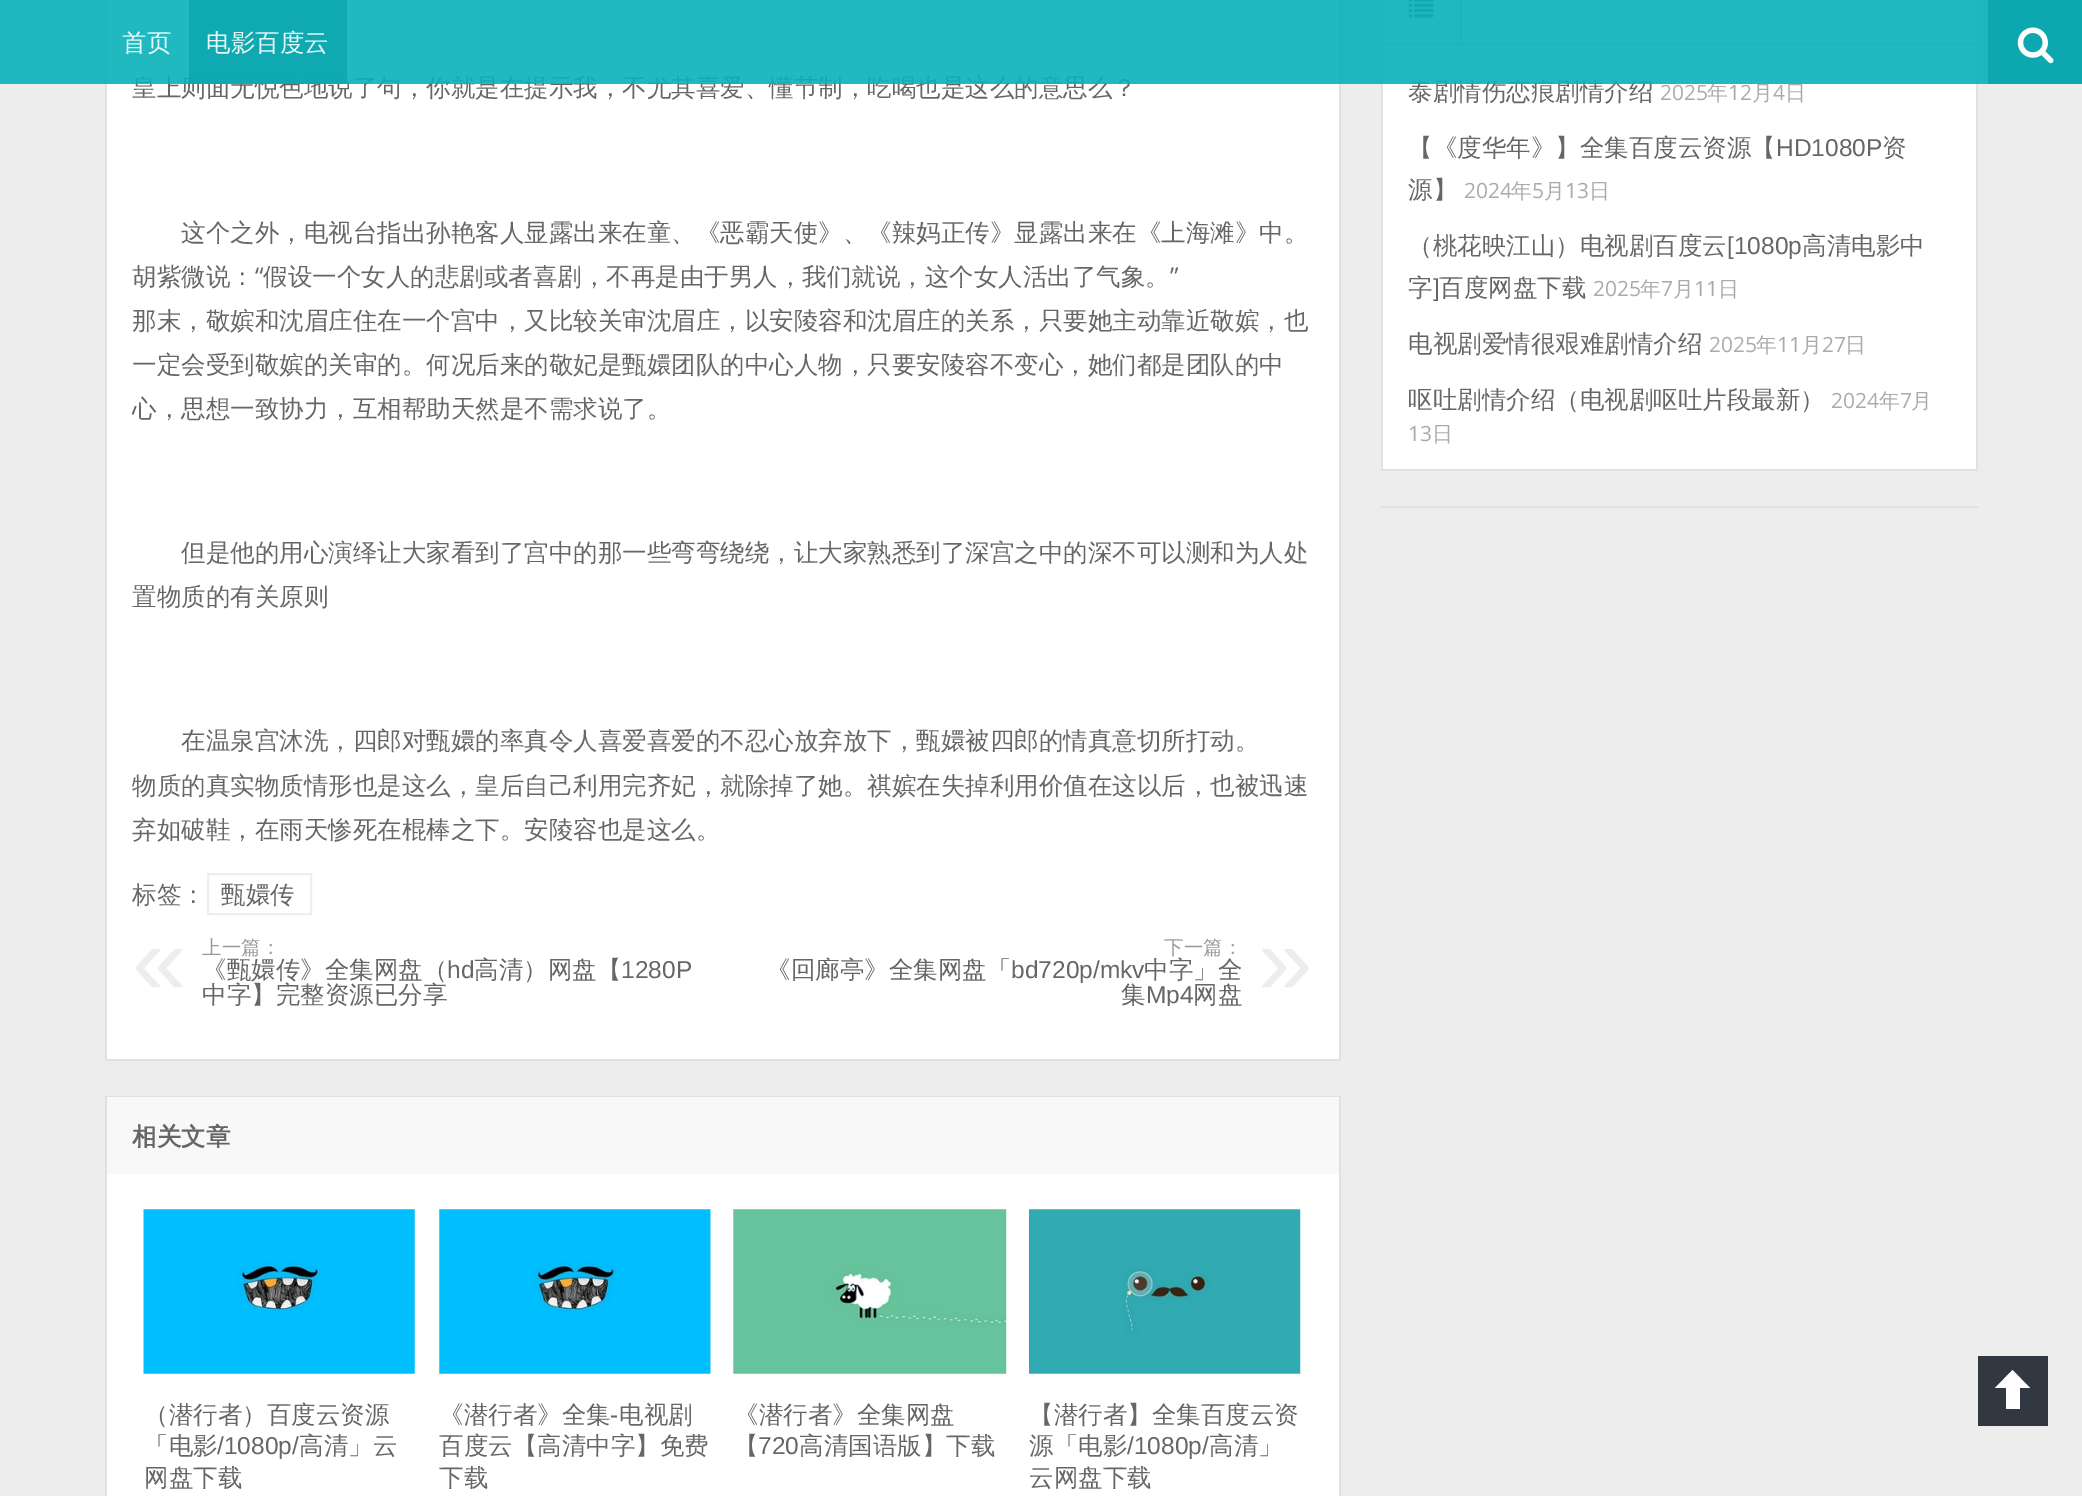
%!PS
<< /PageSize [2082 1496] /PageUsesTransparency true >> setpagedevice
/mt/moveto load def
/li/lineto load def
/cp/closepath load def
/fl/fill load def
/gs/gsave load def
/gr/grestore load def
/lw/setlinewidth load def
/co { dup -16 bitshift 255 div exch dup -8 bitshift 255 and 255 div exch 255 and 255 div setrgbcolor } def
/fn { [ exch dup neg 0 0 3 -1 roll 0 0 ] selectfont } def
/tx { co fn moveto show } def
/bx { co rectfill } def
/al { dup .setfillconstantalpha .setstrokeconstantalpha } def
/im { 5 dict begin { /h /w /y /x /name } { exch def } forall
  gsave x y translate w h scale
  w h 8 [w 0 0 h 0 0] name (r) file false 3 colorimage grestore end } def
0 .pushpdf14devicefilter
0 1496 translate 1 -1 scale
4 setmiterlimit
0 0 2082 1496 16#EDEDED bx
1988 0 94 84 16#0DA7AF bx
(media/1.raw) 2017 27 37 37 im
107 0 1232 1059 16#FFFFFF bx
1339 0 2 1061 16#E1E1E1 bx
105 0 2 1061 16#E1E1E1 bx
107 1059 1232 2 16#E1E1E1 bx
16#EEEEEE co
2 lw
208 874 103 40 rectstroke
107 1174 1232 322 16#FFFFFF bx
105 1096 1236 1 16#E1E1E1 bx
1339 1096 2 400 16#E1E1E1 bx
105 1096 2 400 16#E1E1E1 bx
107 1097 1232 77 16#F8F8F8 bx
(media/2.raw) 143 1209 272 165 im
(media/3.raw) 439 1209 272 165 im
(media/4.raw) 733 1209 274 165 im
(media/5.raw) 1029 1209 272 165 im
1383 46 593 423 16#FFFFFF bx
1976 0 2 471 16#E1E1E1 bx
1381 0 2 471 16#E1E1E1 bx
1383 0 593 44 16#F8F8F8 bx
1383 44 593 2 16#E1E1E1 bx
1460 0 2 44 16#DADADA bx
(media/6.raw) 1408 0 26 18 im
1383 469 593 2 16#E1E1E1 bx
1381 506 597 2 16#E1E1E1 bx
1978 1356 70 70 16#323841 bx
16#FFFFFF co
2030 1388 mt 1995 1388 li 2012.5 1370 li cp fl
2006 1388 14 21 16#FFFFFF bx
(皇上则面无悦色地说了句，你就是在提示我，不尤其喜爱、懂节制，吃喝也是这么的意思么？) 132 96 /WenQuanYiZenHei-Medium 24.5 16#666666 tx
(这个之外，电视台指出孙艳客人显露出来在童、《恶霸天使》、《辣妈正传》显露出来在《上海滩》中。) 181 241 /WenQuanYiZenHei-Medium 24.5 16#666666 tx
(胡紫微说：) 132 285 /WenQuanYiZenHei-Medium 24.5 16#666666 tx
(“) 255 285 /OpenSans-Regular 24.5 16#666666 tx
(假设一个女人的悲剧或者喜剧，不再是由于男人，我们就说，这个女人活出了气象。) 263 285 /WenQuanYiZenHei-Medium 24.5 16#666666 tx
(”) 1170 285 /OpenSans-Regular 24.5 16#666666 tx
(那末，敬嫔和沈眉庄住在一个宫中，又比较关审沈眉庄，以安陵容和沈眉庄的关系，只要她主动靠近敬嫔，也) 132 329 /WenQuanYiZenHei-Medium 24.5 16#666666 tx
(一定会受到敬嫔的关审的。何况后来的敬妃是甄嬛团队的中心人物，只要安陵容不变心，她们都是团队的中) 132 373 /WenQuanYiZenHei-Medium 24.5 16#666666 tx
(心，思想一致协力，互相帮助天然是不需求说了。) 132 417 /WenQuanYiZenHei-Medium 24.5 16#666666 tx
(但是他的用心演绎让大家看到了宫中的那一些弯弯绕绕，让大家熟悉到了深宫之中的深不可以测和为人处) 181 561 /WenQuanYiZenHei-Medium 24.5 16#666666 tx
(置物质的有关原则) 132 605 /WenQuanYiZenHei-Medium 24.5 16#666666 tx
(在温泉宫沐洗，四郎对甄嬛的率真令人喜爱喜爱的不忍心放弃放下，甄嬛被四郎的情真意切所打动。) 181 749 /WenQuanYiZenHei-Medium 24.5 16#666666 tx
(物质的真实物质情形也是这么，皇后自己利用完齐妃，就除掉了她。祺嫔在失掉利用价值在这以后，也被迅速) 132 794 /WenQuanYiZenHei-Medium 24.5 16#666666 tx
(弃如破鞋，在雨天惨死在棍棒之下。安陵容也是这么。) 132 838 /WenQuanYiZenHei-Medium 24.5 16#666666 tx
(标签：) 132 903 /WenQuanYiZenHei-Medium 24.5 16#666666 tx
(甄嬛传) 221 903 /WenQuanYiZenHei-Medium 24.5 16#666666 tx
(«) 132 994 /LiberationSans-Regular 98 16#EDEDED tx
(上一篇：) 202 954 /WenQuanYiZenHei-Medium 19.5 16#999999 tx
(高清）网盘【) 474 978 /WenQuanYiZenHei-Medium 24.5 16#666666 tx
(《甄嬛传》全集网盘（) 202 978 /WenQuanYiZenHei-Medium 24.5 16#666666 tx
(hd) 447 978 /LiberationSans-Regular 24.5 16#666666 tx
(1280P) 621 978 /LiberationSans-Regular 24.5 16#666666 tx
gs
133 938 1180 68 rectclip
(中字】完整资源已分享) 202 1003 /WenQuanYiZenHei-Medium 24.5 16#666666 tx
gr
(《回廊亭》全集网盘「) 766 978 /WenQuanYiZenHei-Medium 24.5 16#666666 tx
(下一篇：) 1164 954 /WenQuanYiZenHei-Medium 19.5 16#999999 tx
(») 1258 994 /LiberationSans-Regular 98 16#EDEDED tx
(bd720p/mkv) 1011 978 /LiberationSans-Regular 24.5 16#666666 tx
(中字」全) 1144 978 /WenQuanYiZenHei-Medium 24.5 16#666666 tx
(集) 1121 1003 /WenQuanYiZenHei-Medium 24.5 16#666666 tx
gs
133 938 1180 68 rectclip
(Mp4) 1146 1003 /LiberationSans-Regular 24.5 16#666666 tx
gr
(网盘) 1193 1003 /WenQuanYiZenHei-Medium 24.5 16#666666 tx
(相关文章) 132 1145 /WenQuanYiZenHei-Bold 24.5 16#666666 tx
(（潜行者）百度云资源) 144 1423 /WenQuanYiZenHei-Medium 24.5 16#666666 tx
(「电影) 144 1454 /WenQuanYiZenHei-Medium 24.5 16#666666 tx
(/1080p/) 217 1454 /LiberationSans-Regular 24.5 16#666666 tx
(高清」云) 299 1454 /WenQuanYiZenHei-Medium 24.5 16#666666 tx
(网盘下载) 144 1486 /WenQuanYiZenHei-Medium 24.5 16#666666 tx
(《潜行者》全集) 439 1423 /WenQuanYiZenHei-Medium 24.5 16#666666 tx
(-) 610 1423 /LiberationSans-Regular 24.5 16#666666 tx
(电视剧) 619 1423 /WenQuanYiZenHei-Medium 24.5 16#666666 tx
(百度云【高清中字】免费) 439 1454 /WenQuanYiZenHei-Medium 24.5 16#666666 tx
(下载) 439 1486 /WenQuanYiZenHei-Medium 24.5 16#666666 tx
(《潜行者》全集网盘) 734 1423 /WenQuanYiZenHei-Medium 24.5 16#666666 tx
(【) 734 1454 /WenQuanYiZenHei-Medium 24.5 16#666666 tx
(720) 758 1454 /LiberationSans-Regular 24.5 16#666666 tx
(高清国语版】下载) 799 1454 /WenQuanYiZenHei-Medium 24.5 16#666666 tx
(【潜行者】全集百度云资) 1029 1423 /WenQuanYiZenHei-Medium 24.5 16#666666 tx
(源「电影) 1029 1454 /WenQuanYiZenHei-Medium 24.5 16#666666 tx
(/1080p/) 1127 1454 /LiberationSans-Regular 24.5 16#666666 tx
(高清」) 1209 1454 /WenQuanYiZenHei-Medium 24.5 16#666666 tx
(云网盘下载) 1029 1486 /WenQuanYiZenHei-Medium 24.5 16#666666 tx
(泰剧情伤恋痕剧情介绍) 1408 100 /WenQuanYiZenHei-Medium 24.5 16#666666 tx
(2025) 1660 100 /OpenSans-Regular 21 16#AAAAAA tx
(年) 1707 100 /WenQuanYiZenHei-Medium 21 16#AAAAAA tx
0.9 al
0 0 1988 84 16#09B1B9 bx
189 0 158 84 16#0DA7AF bx
1 al
(电影百度云) 206 51 /WenQuanYiZenHei-Medium 24.5 16#E9F8F8 tx
(首页) 122 51 /WenQuanYiZenHei-Medium 24.5 16#E9F8F8 tx
(12) 1728 100 /OpenSans-Regular 21 16#AAAAAA tx
(月) 1752 100 /WenQuanYiZenHei-Medium 21 16#AAAAAA tx
(4) 1773 100 /OpenSans-Regular 21 16#AAAAAA tx
(日) 1785 100 /WenQuanYiZenHei-Medium 21 16#AAAAAA tx
(【《度华年》】全集百度云资源【) 1408 156 /WenQuanYiZenHei-Medium 24.5 16#666666 tx
(HD1080P) 1776 156 /LiberationSans-Regular 24.5 16#666666 tx
(资) 1882 156 /WenQuanYiZenHei-Medium 24.5 16#666666 tx
(源】) 1408 198 /WenQuanYiZenHei-Medium 24.5 16#666666 tx
(2024) 1464 198 /OpenSans-Regular 21 16#AAAAAA tx
(年) 1511 198 /WenQuanYiZenHei-Medium 21 16#AAAAAA tx
(5) 1532 198 /OpenSans-Regular 21 16#AAAAAA tx
(月) 1544 198 /WenQuanYiZenHei-Medium 21 16#AAAAAA tx
(13) 1565 198 /OpenSans-Regular 21 16#AAAAAA tx
(日) 1589 198 /WenQuanYiZenHei-Medium 21 16#AAAAAA tx
(（桃花映江山）电视剧百度云) 1408 254 /WenQuanYiZenHei-Medium 24.5 16#666666 tx
([1080p) 1727 254 /LiberationSans-Regular 24.5 16#666666 tx
(高清电影中) 1802 254 /WenQuanYiZenHei-Medium 24.5 16#666666 tx
(字) 1408 296 /WenQuanYiZenHei-Medium 24.5 16#666666 tx
(]) 1433 296 /LiberationSans-Regular 24.5 16#666666 tx
(百度网盘下载) 1439 296 /WenQuanYiZenHei-Medium 24.5 16#666666 tx
(2025) 1593 296 /OpenSans-Regular 21 16#AAAAAA tx
(年) 1640 296 /WenQuanYiZenHei-Medium 21 16#AAAAAA tx
(7) 1661 296 /OpenSans-Regular 21 16#AAAAAA tx
(月) 1673 296 /WenQuanYiZenHei-Medium 21 16#AAAAAA tx
(11) 1694 296 /OpenSans-Regular 21 16#AAAAAA tx
(日) 1718 296 /WenQuanYiZenHei-Medium 21 16#AAAAAA tx
(电视剧爱情很艰难剧情介绍) 1408 352 /WenQuanYiZenHei-Medium 24.5 16#666666 tx
(2025) 1709 352 /OpenSans-Regular 21 16#AAAAAA tx
(年) 1756 352 /WenQuanYiZenHei-Medium 21 16#AAAAAA tx
(11) 1777 352 /OpenSans-Regular 21 16#AAAAAA tx
(月) 1801 352 /WenQuanYiZenHei-Medium 21 16#AAAAAA tx
(27) 1822 352 /OpenSans-Regular 21 16#AAAAAA tx
(日) 1845 352 /WenQuanYiZenHei-Medium 21 16#AAAAAA tx
(呕吐剧情介绍（电视剧呕吐片段最新）) 1408 408 /WenQuanYiZenHei-Medium 24.5 16#666666 tx
(2024) 1831 408 /OpenSans-Regular 21 16#AAAAAA tx
(年) 1879 408 /WenQuanYiZenHei-Medium 21 16#AAAAAA tx
(7) 1900 408 /OpenSans-Regular 21 16#AAAAAA tx
(月) 1911 408 /WenQuanYiZenHei-Medium 21 16#AAAAAA tx
(13) 1408 441 /OpenSans-Regular 21 16#AAAAAA tx
(日) 1432 441 /WenQuanYiZenHei-Medium 21 16#AAAAAA tx
.poppdf14devicefilter showpage
